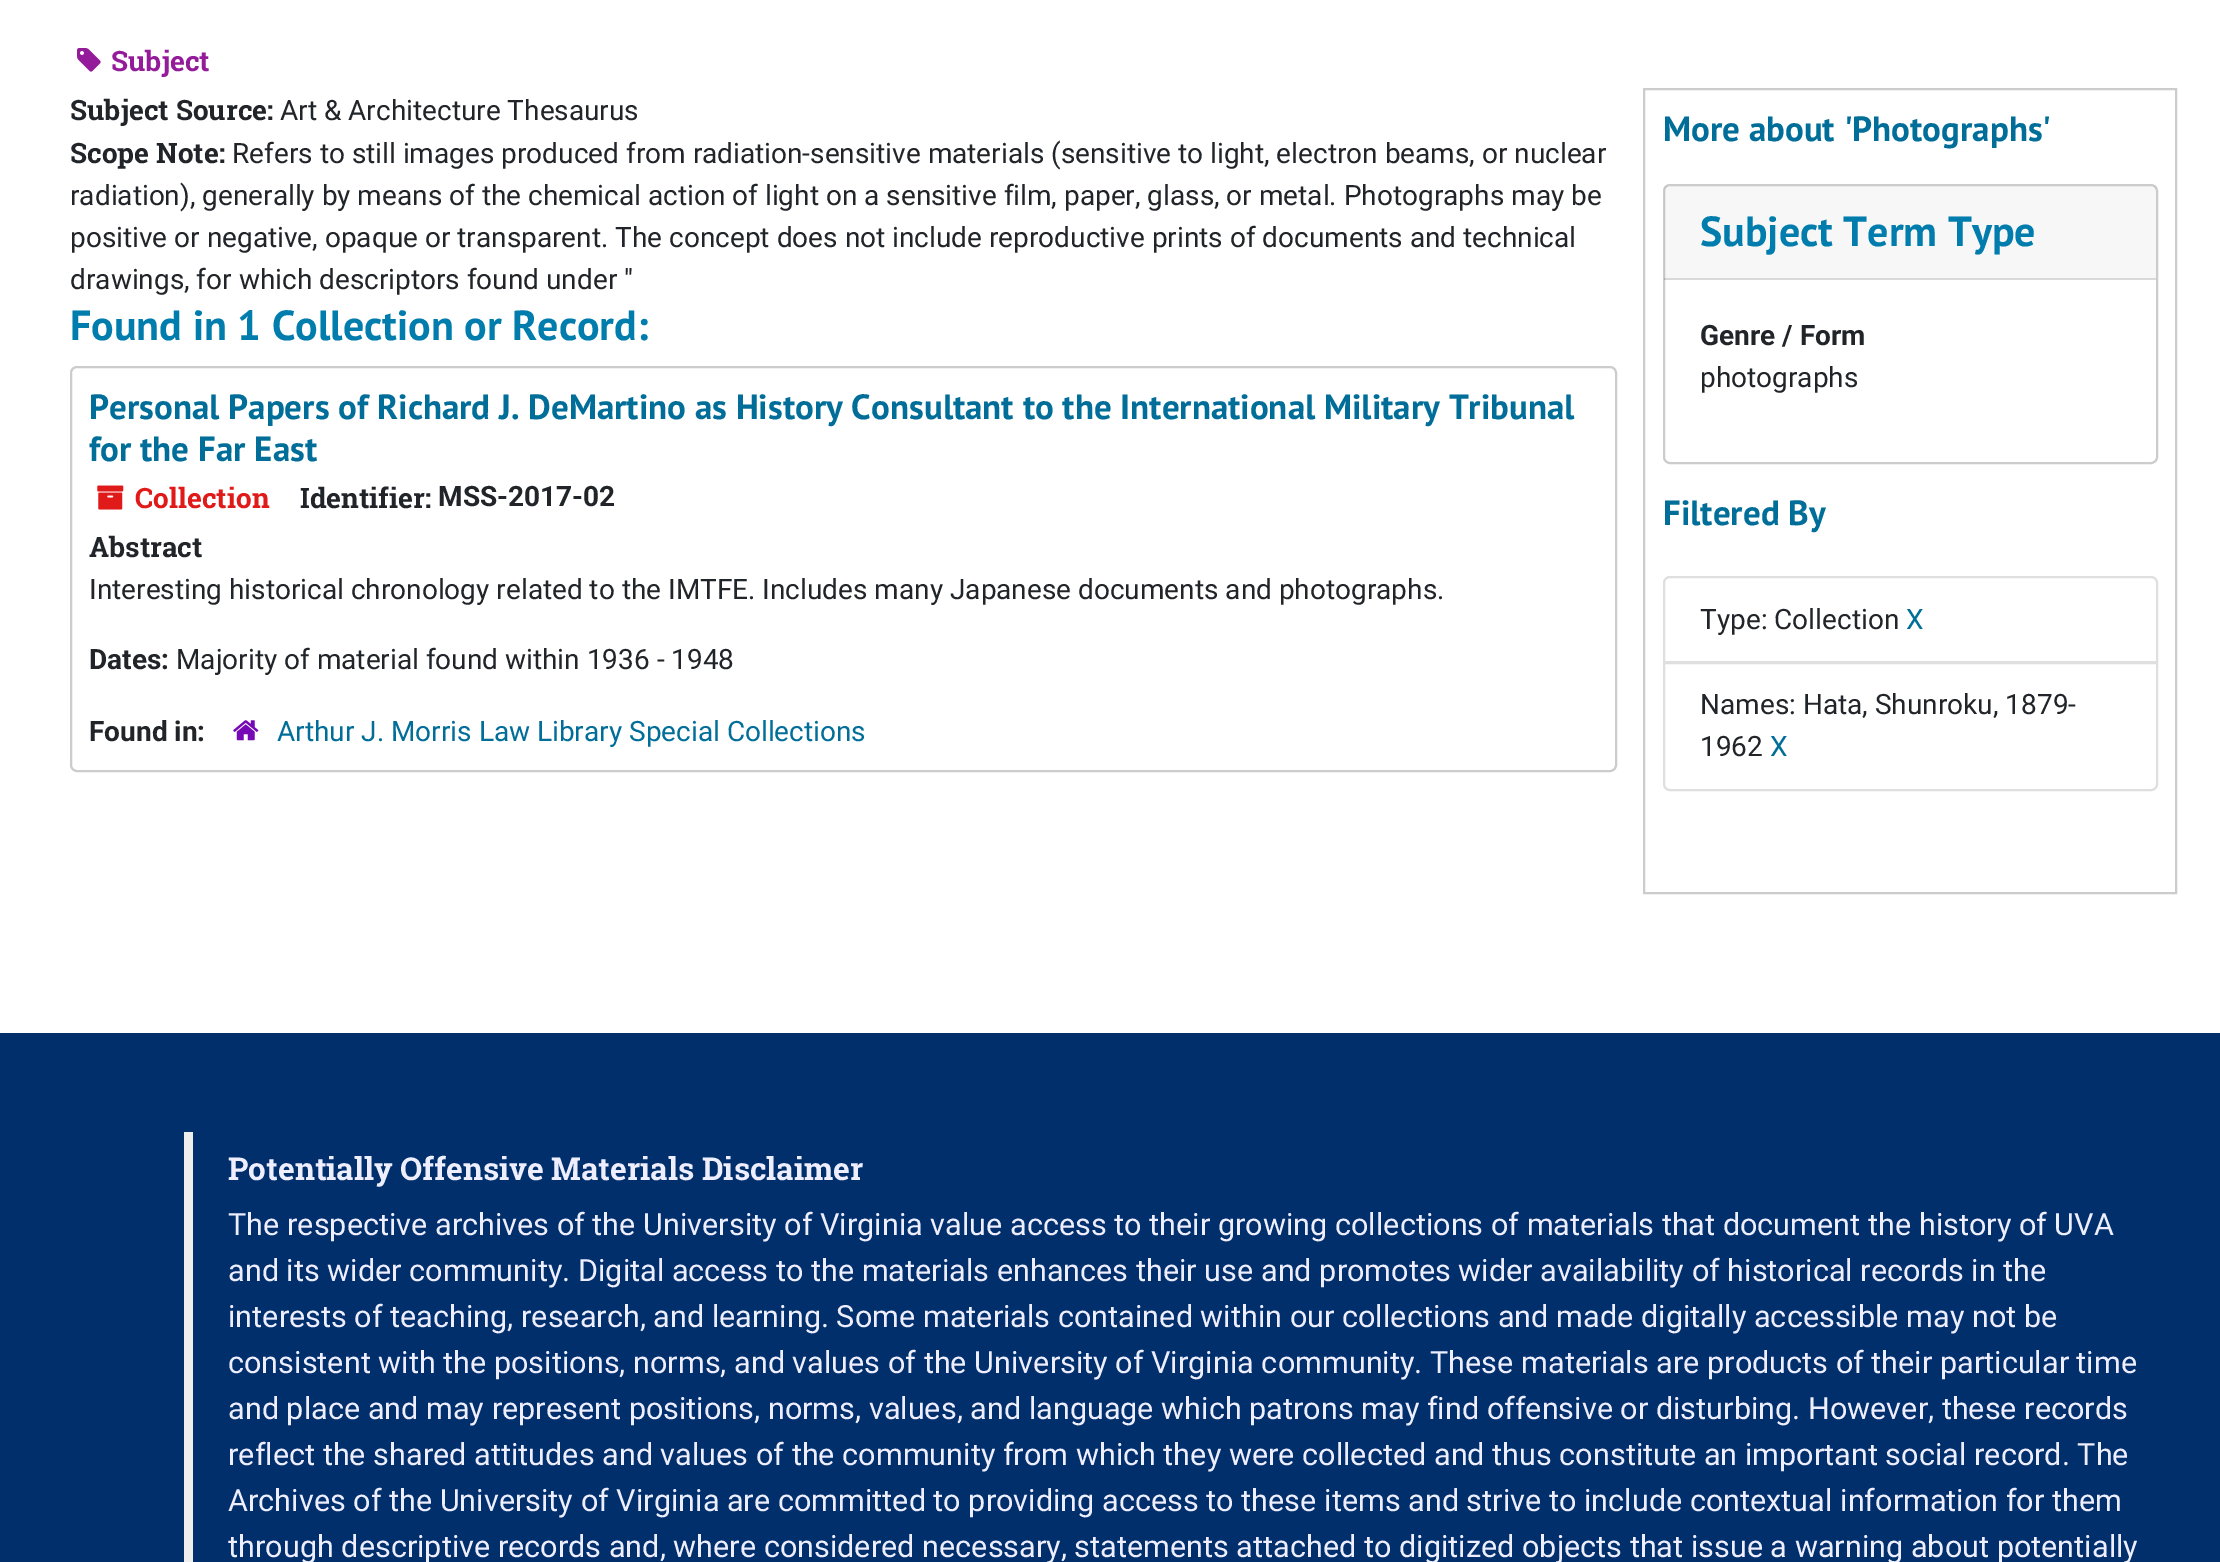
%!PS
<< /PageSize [2220 1562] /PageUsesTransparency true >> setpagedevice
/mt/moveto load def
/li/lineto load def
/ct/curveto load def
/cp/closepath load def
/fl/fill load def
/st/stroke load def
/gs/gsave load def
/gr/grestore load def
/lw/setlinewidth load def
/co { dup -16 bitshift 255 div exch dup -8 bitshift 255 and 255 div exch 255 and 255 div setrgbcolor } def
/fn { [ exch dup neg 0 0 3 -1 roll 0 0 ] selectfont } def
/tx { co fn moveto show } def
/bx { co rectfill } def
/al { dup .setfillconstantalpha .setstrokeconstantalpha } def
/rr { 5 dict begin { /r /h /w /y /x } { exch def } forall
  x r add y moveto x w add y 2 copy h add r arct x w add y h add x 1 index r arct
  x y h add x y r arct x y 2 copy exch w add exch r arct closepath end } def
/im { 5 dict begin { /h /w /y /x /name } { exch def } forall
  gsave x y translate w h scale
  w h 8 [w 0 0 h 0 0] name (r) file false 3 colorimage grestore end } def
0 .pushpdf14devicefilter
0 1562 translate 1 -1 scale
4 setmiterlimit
0 0 2220 1562 16#FFFFFF bx
(media/1.raw) 77 48 24 24 im
16#CCCCCC co
2 lw
71 367 1545 404 6 rr st
(media/2.raw) 97 485 27 25 im
(media/3.raw) 233 720 26 21 im
1644 89 532 804 rectstroke
1664 185 493 278 6 rr st
0.03 al
1664 186 492 94 16#000000 bx
0.12 al
1664 278 492 2 16#000000 bx
1 al
16#DFDFDF co
1670 577 mt 2151 577 li 2154.5 577 2157 579.5 2157 583 ct 2157 662 li 1664 662 li 1664 583 li 1664 579.5 1666.5 577 1670 577 ct cp st
16#FFFFFF co
1664 663 mt 2157 663 li 2157 784 li 2157 787.5 2154.5 790 2151 790 ct 1670 790 li 1666.5 790 1664 787.5 1664 784 ct cp gs fl gr
16#DFDFDF co
st
0 1033 2220 529 16#002F6C bx
184 1132 9 430 16#EEEEEE bx
(Subject) 111 71 /RobotoSlab-Bold 28 16#941C9A tx
(Subject Source:) 70 120 /RobotoSlab-Bold 28 16#212529 tx
(Art & Architecture Thesaurus) 280 120 /Roboto-Regular 28 16#212529 tx
(Scope Note:) 70 163 /RobotoSlab-Bold 28 16#212529 tx
(Refers to still images produced from radiation-sensitive materials \(sensitive to light, electron beams, or nuclear) 232 163 /Roboto-Regular 28 16#212529 tx
(radiation\), generally by means of the chemical action of light on a sensitive film, paper, glass, or metal. Photographs may be) 70 205 /Roboto-Regular 28 16#212529 tx
(positive or negative, opaque or transparent. The concept does not include reproductive prints of documents and technical) 70 247 /Roboto-Regular 28 16#212529 tx
(drawings, for which descriptors found under ") 70 289 /Roboto-Regular 28 16#212529 tx
(Found in 1 Collection or Record:) 70 340 /PTSans-Bold 42 16#007CAD tx
(Personal Papers of Richard J. DeMartino as History Consultant to the International Military Tribunal) 89 419 /PTSans-Bold 35 16#006E99 tx
(for the Far East) 89 461 /PTSans-Bold 35 16#006E99 tx
(Collection) 135 508 /RobotoSlab-Bold 28 16#E01919 tx
(Identifier:) 300 508 /RobotoSlab-Bold 28 16#212529 tx
(MSS-2017-02) 438 506 /Roboto-Bold 28 16#212529 tx
(Abstract) 89 557 /RobotoSlab-Bold 28 16#212529 tx
(Interesting historical chronology related to the IMTFE. Includes many Japanese documents and photographs.) 89 599 /Roboto-Regular 28 16#212529 tx
(Dates:) 89 669 /Roboto-Bold 28 16#212529 tx
(Majority of material found within 1936 - 1948) 176 669 /Roboto-Regular 28 16#212529 tx
(Found in:) 89 741 /Roboto-Bold 28 16#212529 tx
(Arthur J. Morris Law Library Special Collections) 277 741 /Roboto-Regular 28 16#006E99 tx
(More about 'Photographs') 1663 141 /PTSans-Bold 35 16#006E99 tx
(Subject Term Type) 1700 246 /PTSans-Bold 42 16#007CAD tx
(Genre / Form) 1700 345 /Roboto-Bold 28 16#212529 tx
(photographs) 1700 387 /Roboto-Regular 28 16#212529 tx
(Filtered By) 1663 525 /PTSans-Bold 35 16#006E99 tx
(Type: Collection) 1700 629 /Roboto-Regular 28 16#212529 tx
(X) 1906 629 /Roboto-Regular 28 16#006E99 tx
(Names: Hata, Shunroku, 1879-) 1700 714 /Roboto-Regular 28 16#212529 tx
(1962) 1700 756 /Roboto-Regular 28 16#212529 tx
(X) 1770 756 /Roboto-Regular 28 16#006E99 tx
(Potentially Offensive Materials Disclaimer) 228 1180 /RobotoSlab-Bold 31.5 16#EEEEFF tx
(The respective archives of the University of Virginia value access to their growing collections of materials that document the history of UVA) 228 1235 /Roboto-Regular 30.62 16#EEEEFF tx
(and its wider community. Digital access to the materials enhances their use and promotes wider availability of historical records in the) 228 1281 /Roboto-Regular 30.62 16#EEEEFF tx
(interests of teaching, research, and learning. Some materials contained within our collections and made digitally accessible may not be) 228 1327 /Roboto-Regular 30.62 16#EEEEFF tx
(consistent with the positions, norms, and values of the University of Virginia community. These materials are products of their particular time) 228 1373 /Roboto-Regular 30.62 16#EEEEFF tx
(and place and may represent positions, norms, values, and language which patrons may find offensive or disturbing. However, these records) 228 1419 /Roboto-Regular 30.62 16#EEEEFF tx
(reflect the shared attitudes and values of the community from which they were collected and thus constitute an important social record. The) 228 1465 /Roboto-Regular 30.62 16#EEEEFF tx
(Archives of the University of Virginia are committed to providing access to these items and strive to include contextual information for them) 228 1511 /Roboto-Regular 30.62 16#EEEEFF tx
(through descriptive records and, where considered necessary, statements attached to digitized objects that issue a warning about potentially) 228 1557 /Roboto-Regular 30.62 16#EEEEFF tx
.poppdf14devicefilter showpage
